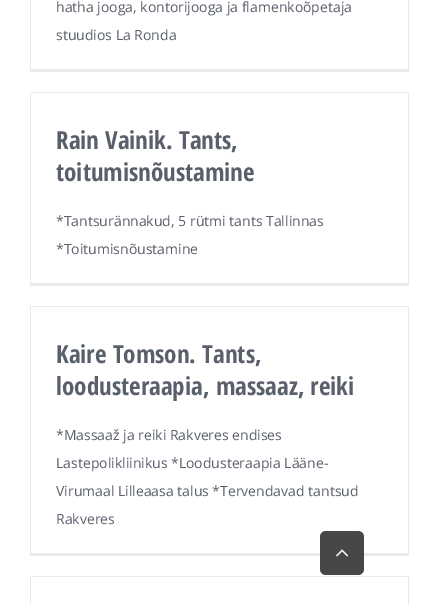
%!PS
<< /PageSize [439 605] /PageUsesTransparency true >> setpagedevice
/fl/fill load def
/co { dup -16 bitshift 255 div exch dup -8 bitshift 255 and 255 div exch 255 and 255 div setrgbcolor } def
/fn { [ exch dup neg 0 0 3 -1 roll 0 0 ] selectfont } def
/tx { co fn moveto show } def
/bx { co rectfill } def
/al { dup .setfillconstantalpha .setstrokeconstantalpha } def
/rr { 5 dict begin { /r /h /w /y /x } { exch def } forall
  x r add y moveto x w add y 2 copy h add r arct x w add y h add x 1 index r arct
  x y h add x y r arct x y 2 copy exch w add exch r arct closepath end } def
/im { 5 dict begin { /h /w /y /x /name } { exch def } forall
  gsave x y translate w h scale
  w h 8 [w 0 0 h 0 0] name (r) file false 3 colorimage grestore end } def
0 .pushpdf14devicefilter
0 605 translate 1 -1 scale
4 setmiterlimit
0 0 439 605 16#FFFFFF bx
408 0 1 72 16#EBEAEA bx
30 69 379 3 16#EBEAEA bx
30 0 1 72 16#EBEAEA bx
30 92 379 1 16#EBEAEA bx
408 92 1 194 16#EBEAEA bx
30 283 379 3 16#EBEAEA bx
30 92 1 194 16#EBEAEA bx
30 306 379 1 16#EBEAEA bx
408 306 1 250 16#EBEAEA bx
30 553 379 3 16#EBEAEA bx
30 306 1 250 16#EBEAEA bx
30 576 379 1 16#EBEAEA bx
408 576 1 29 16#EBEAEA bx
30 576 1 29 16#EBEAEA bx
0.9 al
16#333333 co
320 531 44 44 6 rr fl
1 al
(media/1.raw) 336 549 13 8 im
(hatha jooga, kontorijooga ja flamenkoõpetaja) 56 12 /OpenSans-Regular 14 16#595F6B tx
(stuudios La Ronda) 56 40 /OpenSans-Regular 14 16#595F6B tx
(Rain Vainik. Tants,) 56 149 /OpenSansCondensed-Bold 25 16#595F6B tx
(toitumisnõustamine) 56 181 /OpenSansCondensed-Bold 25 16#595F6B tx
(*Tantsurännakud, 5 rütmi tants Tallinnas) 56 226 /OpenSans-Regular 14 16#595F6B tx
(*Toitumisnõustamine) 56 254 /OpenSans-Regular 14 16#595F6B tx
(Kaire Tomson. Tants,) 56 363 /OpenSansCondensed-Bold 25 16#595F6B tx
(loodusteraapia, massaaz, reiki) 56 395 /OpenSansCondensed-Bold 25 16#595F6B tx
(*Massaaž ja reiki Rakveres endises) 56 440 /OpenSans-Regular 14 16#595F6B tx
(Lastepolikliinikus *Loodusteraapia Lääne-) 56 468 /OpenSans-Regular 14 16#595F6B tx
(Virumaal Lilleaasa talus *Tervendavad tantsud) 56 496 /OpenSans-Regular 14 16#595F6B tx
(Rakveres) 56 524 /OpenSans-Regular 14 16#595F6B tx
.poppdf14devicefilter showpage
